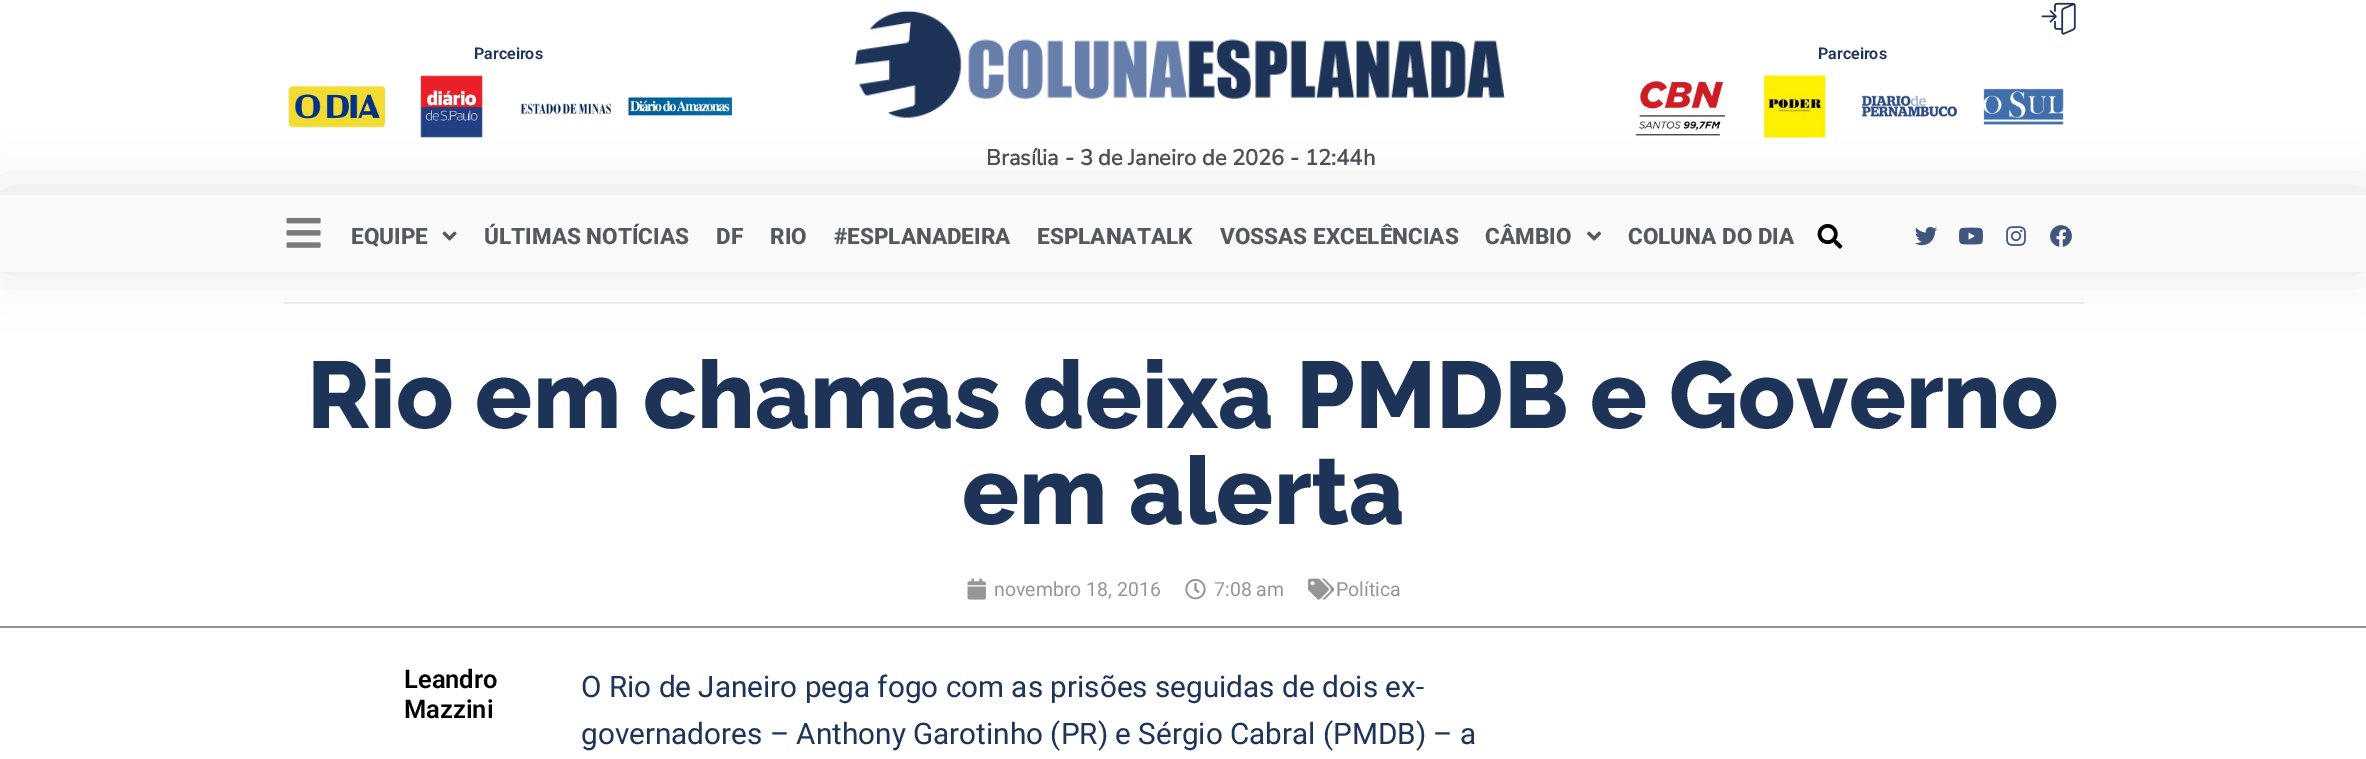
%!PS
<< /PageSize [2366 759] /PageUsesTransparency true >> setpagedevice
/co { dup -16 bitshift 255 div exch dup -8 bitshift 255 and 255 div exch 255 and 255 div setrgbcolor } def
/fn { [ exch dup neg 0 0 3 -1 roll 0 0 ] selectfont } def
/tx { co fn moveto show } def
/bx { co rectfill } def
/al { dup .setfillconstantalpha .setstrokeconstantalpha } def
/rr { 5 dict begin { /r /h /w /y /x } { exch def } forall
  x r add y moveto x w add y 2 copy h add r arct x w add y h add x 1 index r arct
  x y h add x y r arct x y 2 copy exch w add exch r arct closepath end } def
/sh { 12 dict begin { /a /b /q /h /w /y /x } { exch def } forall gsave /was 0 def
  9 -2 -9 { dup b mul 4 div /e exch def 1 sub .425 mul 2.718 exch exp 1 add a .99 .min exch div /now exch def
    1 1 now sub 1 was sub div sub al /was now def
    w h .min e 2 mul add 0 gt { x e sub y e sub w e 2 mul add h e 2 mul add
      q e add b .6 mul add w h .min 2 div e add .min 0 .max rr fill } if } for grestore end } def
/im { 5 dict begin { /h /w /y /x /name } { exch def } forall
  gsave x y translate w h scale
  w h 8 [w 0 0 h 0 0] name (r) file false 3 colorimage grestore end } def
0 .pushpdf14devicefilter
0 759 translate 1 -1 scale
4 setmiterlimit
0 0 2366 759 16#FFFFFF bx
(media/1.raw) 287 85 99 43 im
(media/2.raw) 420 73 65 67 im
(media/3.raw) 520 102 93 13 im
(media/4.raw) 627 96 106 31 im
(media/5.raw) 2041 2 35 33 im
(media/6.raw) 1636 79 90 58 im
(media/7.raw) 1763 74 64 66 im
(media/8.raw) 1862 95 95 22 im
(media/9.raw) 1983 88 81 37 im
(media/10.raw) 854 10 651 108 im
284 302 1800 2 16#EFEFEF bx
16#010101 co
0 192 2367 77 0 28.5 .11 sh
0 195 2366 77 16#FAFAFA bx
(media/11.raw) 286 217 35 31 im
(media/12.raw) 442 231 15 10 im
(media/13.raw) 1587 231 15 10 im
(media/14.raw) 1817 224 26 25 im
(media/15.raw) 1915 226 23 20 im
(media/16.raw) 1959 227 24 18 im
(media/17.raw) 2006 226 20 20 im
(media/18.raw) 2050 225 22 22 im
(media/19.raw) 967 578 19 22 im
(media/20.raw) 1185 579 21 21 im
(media/21.raw) 1308 578 27 22 im
0 626 2366 2 16#939393 bx
(Parceiros) 474 59 /Roboto-SemiBold 16 16#1D3358 tx
(Parceiros) 1818 59 /Roboto-SemiBold 16 16#1D3358 tx
(Brasília - 3 de Janeiro de 2026 - 12:44h) 986 165 /NunitoSans-Bold 21.9 16#4B4F58 tx
(EQUIPE) 351 244 /Roboto-ExtraBold 22.5 16#54595F tx
(ÚLTIMAS NOTÍCIAS) 484 244 /Roboto-ExtraBold 22.5 16#54595F tx
(DF) 716 244 /Roboto-ExtraBold 22.5 16#54595F tx
(RIO) 770 244 /Roboto-ExtraBold 22.5 16#54595F tx
(#ESPLANADEIRA) 834 244 /Roboto-ExtraBold 22.5 16#54595F tx
(ESPLANATALK) 1037 244 /Roboto-ExtraBold 22.5 16#54595F tx
(VOSSAS EXCELÊNCIAS) 1220 244 /Roboto-ExtraBold 22.5 16#54595F tx
(CÂMBIO) 1485 244 /Roboto-ExtraBold 22.5 16#54595F tx
(COLUNA DO DIA) 1628 244 /Roboto-ExtraBold 22.5 16#54595F tx
(Rio em chamas deixa PMDB e Governo) 307 428 /Raleway-ExtraBold 94.5 16#1D3358 tx
(em alerta) 962 524 /Raleway-ExtraBold 94.5 16#1D3358 tx
(novembro 18, 2016) 994 596 /Roboto-Regular 19.5 16#969696 tx
(7:08 am) 1214 596 /Roboto-Regular 19.5 16#969696 tx
(Política) 1336 596 /Roboto-Regular 19.5 16#969696 tx
(Leandro) 404 688 /Roboto-SemiBold 25.5 16#000000 tx
(Mazzini) 404 718 /Roboto-SemiBold 25.5 16#000000 tx
(O Rio de Janeiro pega fogo com as prisões seguidas de dois ex-) 581 697 /Roboto-Regular 29.7 16#1D3358 tx
(governadores – Anthony Garotinho \(PR\) e Sérgio Cabral \(PMDB\) – a) 581 744 /Roboto-Regular 29.7 16#1D3358 tx
.poppdf14devicefilter showpage
